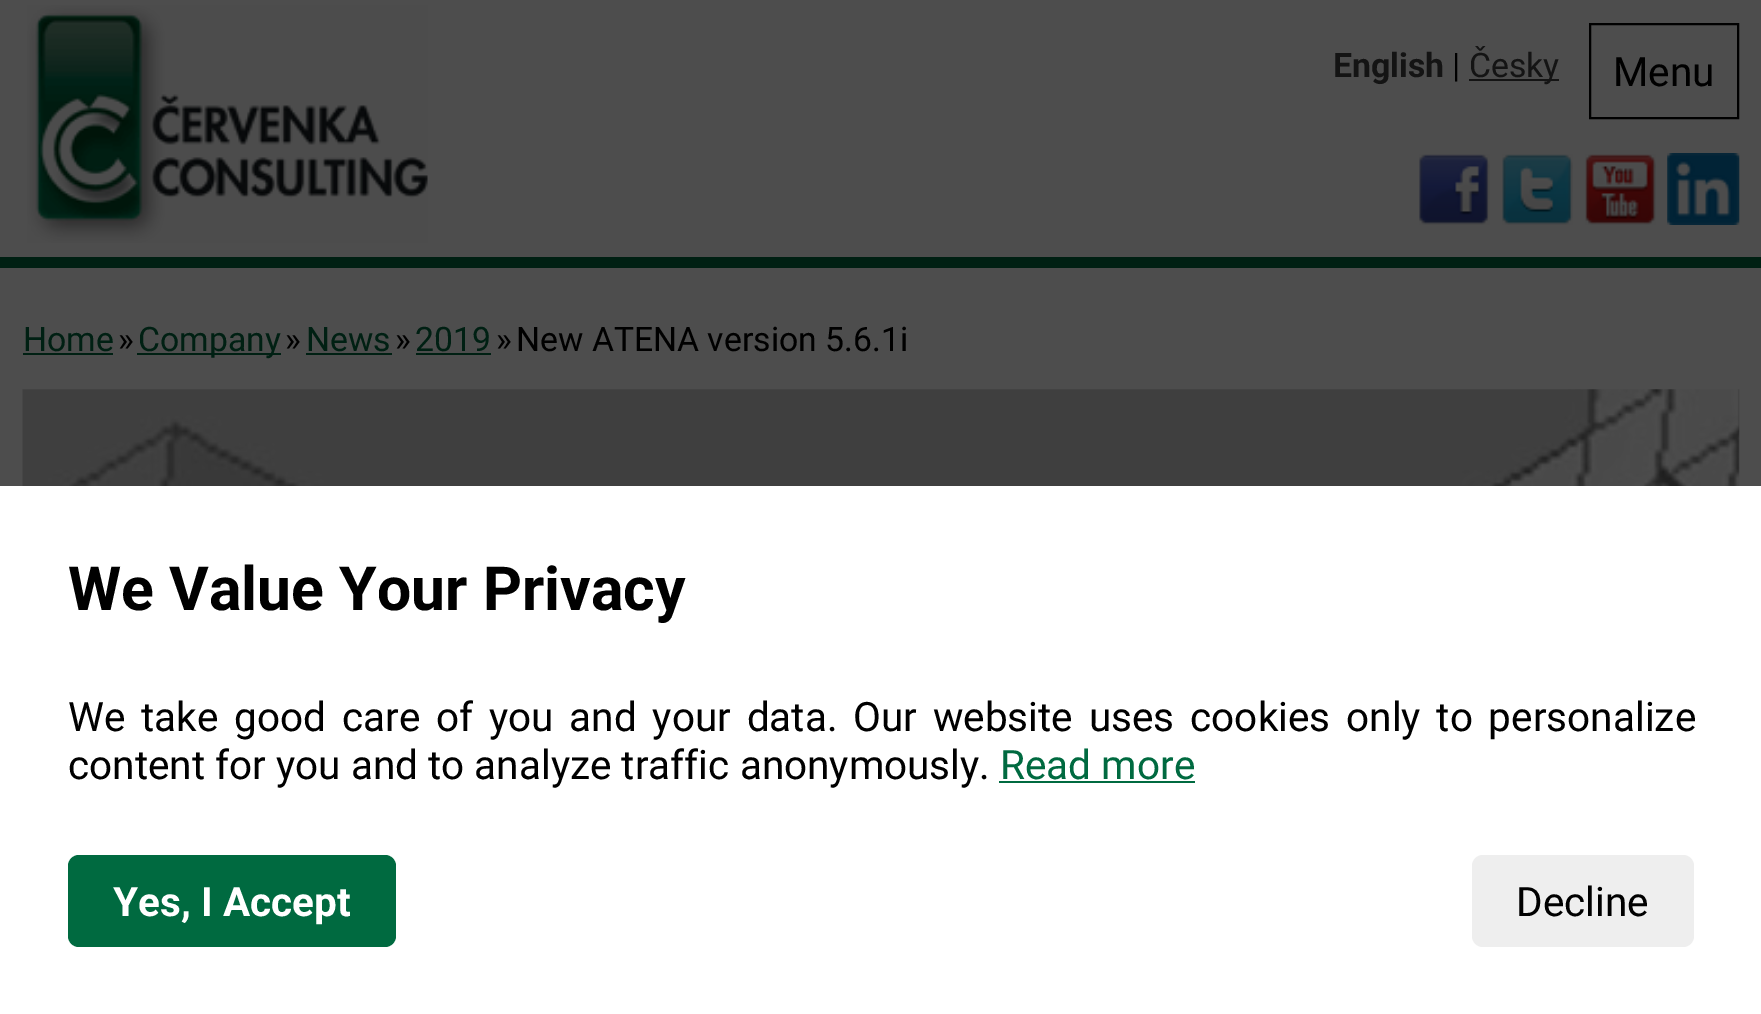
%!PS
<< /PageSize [1761 1014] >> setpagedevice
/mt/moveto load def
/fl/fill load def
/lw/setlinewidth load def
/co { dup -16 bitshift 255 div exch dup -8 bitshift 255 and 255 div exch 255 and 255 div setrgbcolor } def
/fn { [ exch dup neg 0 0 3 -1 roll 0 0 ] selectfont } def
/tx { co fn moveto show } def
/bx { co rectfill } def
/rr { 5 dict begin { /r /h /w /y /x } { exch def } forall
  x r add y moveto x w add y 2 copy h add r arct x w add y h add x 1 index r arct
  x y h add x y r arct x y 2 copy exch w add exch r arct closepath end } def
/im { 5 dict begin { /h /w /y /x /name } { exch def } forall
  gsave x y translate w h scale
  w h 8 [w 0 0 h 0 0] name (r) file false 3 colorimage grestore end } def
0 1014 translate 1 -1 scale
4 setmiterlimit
0 0 1761 1014 16#4D4D4D bx
0 257 1761 11 16#002013 bx
(media/1.raw) 27 5 401 238 im
1469 79 90 2 16#141414 bx
16#000000 co
2 lw
1590 24 148 94 rectstroke
(media/2.raw) 1419 154 71 71 im
(media/3.raw) 1502 154 71 71 im
(media/4.raw) 1585 154 71 71 im
(media/5.raw) 1667 153 73 72 im
23 353 90 2 16#002013 bx
137 353 144 2 16#002013 bx
306 353 86 2 16#002013 bx
416 353 75 2 16#002013 bx
(media/6.raw) 22 389 1718 97 im
0 486 1761 528 16#FFFFFF bx
999 781 196 2 16#006A40 bx
68 855 328 92 11 rr fl
16#EEEEEE co
1472 855 222 92 11 rr fl
(English) 1333 77 /Roboto-Bold 33.75 16#141414 tx
(|) 1452 77 /Roboto-Regular 33.75 16#000000 tx
(Česky) 1469 77 /Roboto-Regular 33.75 16#141414 tx
(Menu) 1613 86 /Roboto-Regular 40.5 16#000000 tx
(Home) 23 351 /Roboto-Regular 33.75 16#002013 tx
(») 118 351 /Roboto-Regular 33.75 16#000000 tx
(Company) 138 351 /Roboto-Regular 33.75 16#002013 tx
(») 285 351 /Roboto-Regular 33.75 16#000000 tx
(News) 306 351 /Roboto-Regular 33.75 16#002013 tx
(») 395 351 /Roboto-Regular 33.75 16#000000 tx
(2019) 415 351 /Roboto-Regular 33.75 16#002013 tx
(») 496 351 /Roboto-Regular 33.75 16#000000 tx
(New ATENA version 5.6.1i) 516 351 /Roboto-Regular 33.75 16#000000 tx
(We Value Your Privacy) 68 610 /Roboto-Bold 60.75 16#000000 tx
/Roboto-Regular 40.5 fn
68 731 mt 5.75 0 32 (We take good care of you and your data. Our website uses cookies only to personalize) widthshow
(content for you and to analyze traffic anonymously.) 68 779 /Roboto-Regular 40.5 16#000000 tx
(Read more) 1000 779 /Roboto-Regular 40.5 16#006A40 tx
(Yes, I Accept) 113 916 /Roboto-Bold 40.5 16#FFFFFF tx
(Decline) 1516 916 /Roboto-Regular 40.5 16#000000 tx
showpage
